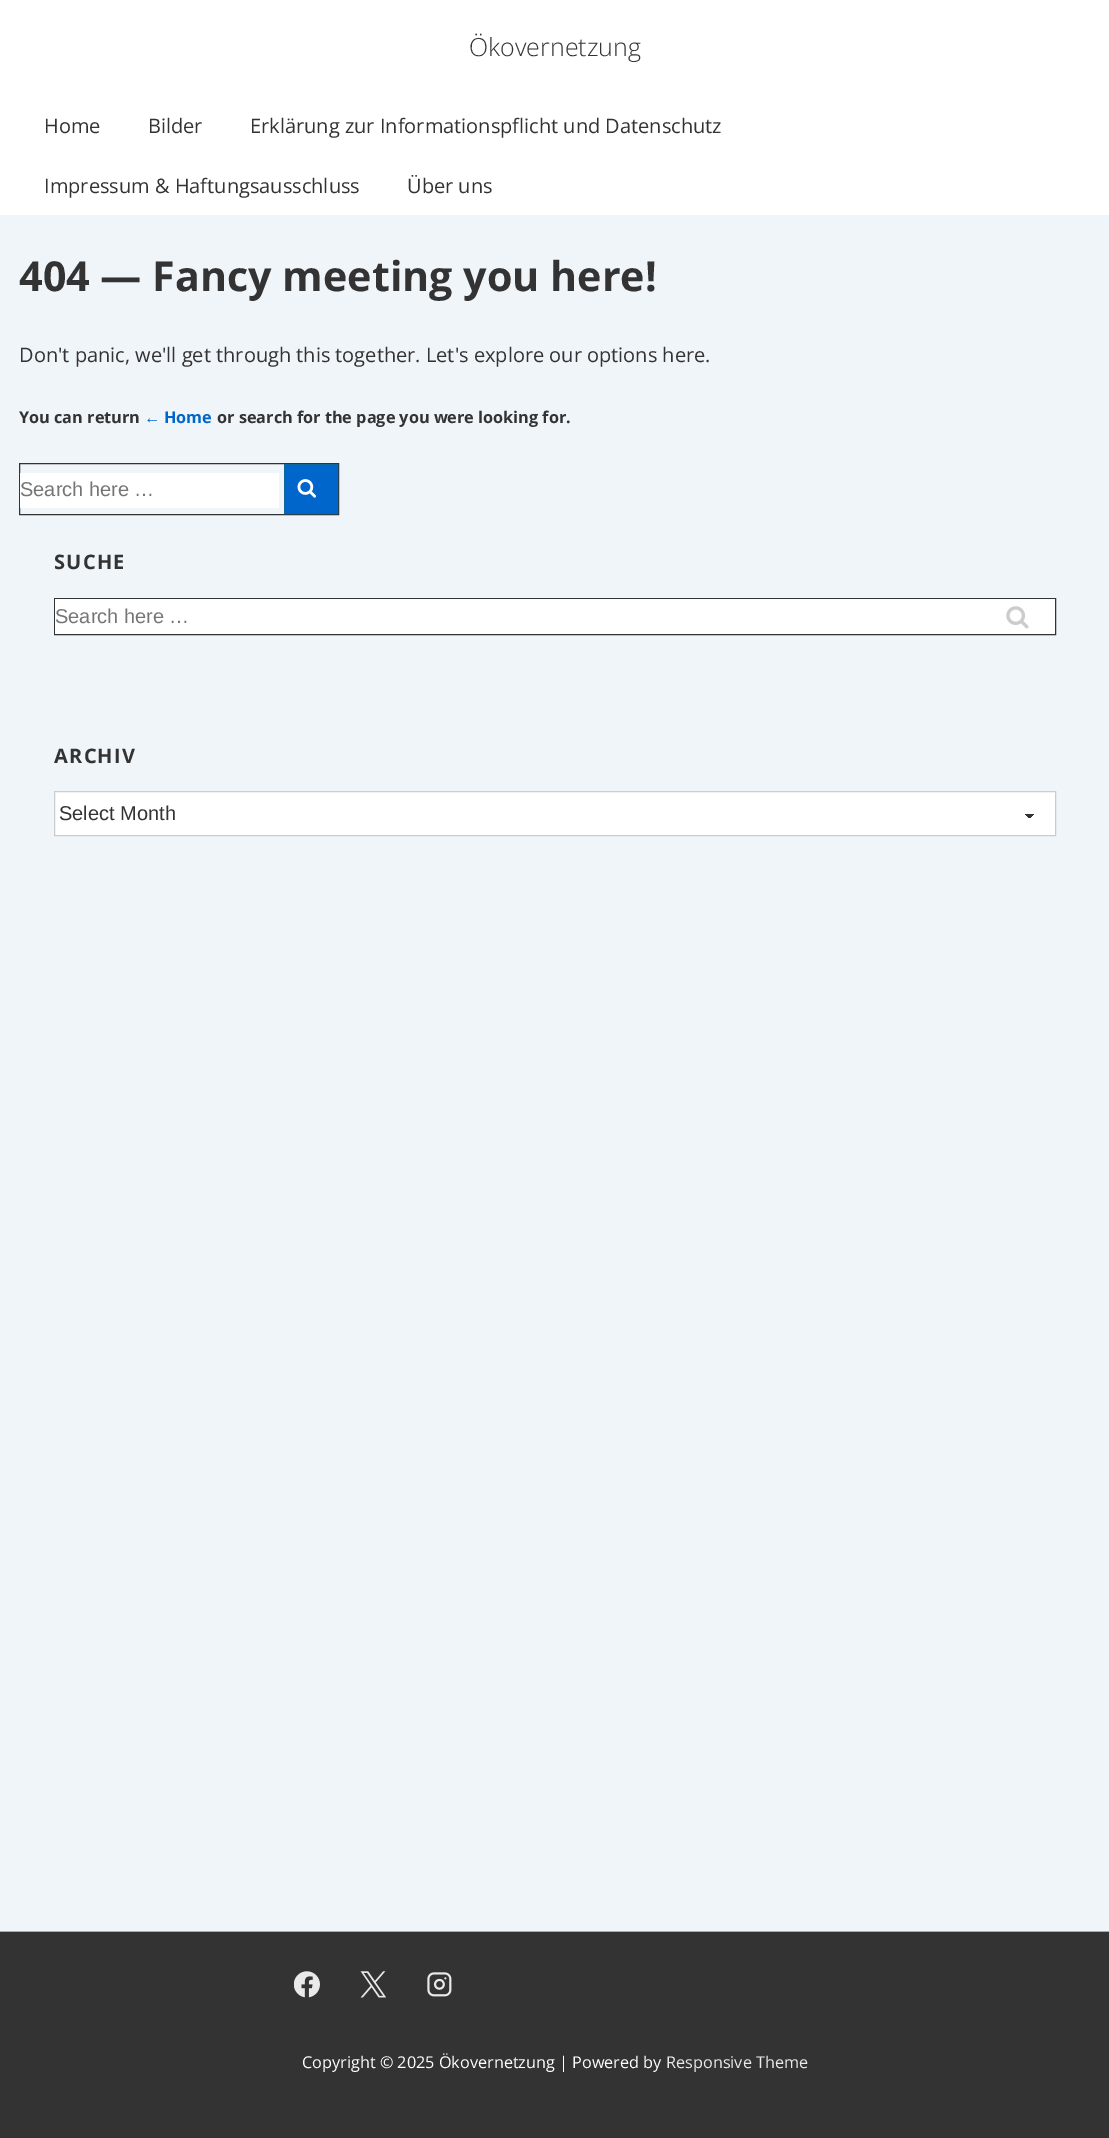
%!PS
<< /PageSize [1109 2138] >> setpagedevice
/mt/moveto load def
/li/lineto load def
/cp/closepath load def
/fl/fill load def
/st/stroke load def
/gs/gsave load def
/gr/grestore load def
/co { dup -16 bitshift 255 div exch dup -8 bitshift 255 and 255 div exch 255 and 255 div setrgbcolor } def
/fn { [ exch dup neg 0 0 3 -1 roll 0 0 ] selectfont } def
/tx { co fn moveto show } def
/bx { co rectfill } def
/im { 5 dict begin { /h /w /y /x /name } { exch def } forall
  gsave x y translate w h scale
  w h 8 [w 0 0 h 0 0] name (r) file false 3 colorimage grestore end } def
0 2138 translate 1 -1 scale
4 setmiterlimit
0 0 1109 2138 16#F0F5FA bx
0 0 1109 215 16#FFFFFF bx
16#333333 co
19.5 463.5 319 51 rectstroke
20 473 259 35 16#FFFFFF bx
16#0066CC co
284.5 464.5 mt 337.5 464.5 li 337.5 513.5 li 284.5 513.5 li cp gs fl gr
16#10659C co
st
(media/1.raw) 297 479 20 19 im
16#333333 co
54.5 598.5 1001 36 rectstroke
55 599 1000 35 16#FFFFFF bx
(media/2.raw) 1006 606 23 23 im
55 792 1000 43 16#FFFFFF bx
gs 1030 814 mt 1036 814 li 1036 818 li 1030 818 li cp clip newpath
<< /ShadingType 2 /ColorSpace /DeviceRGB /Coords [1030 813 1036 819] /Extend [true true] /Function << /FunctionType 3 /Domain [0 1] /Functions [<< /FunctionType 2 /Domain [0 1] /C0 [.2 .2 .2] /C1 [.2 .2 .2] /N 1 >> << /FunctionType 2 /Domain [0 1] /C0 [1 1 1] /C1 [1 1 1] /N 1 >>] /Bounds [.5] /Encode [0 1 0 1] >> >> shfill gr
gs 1024 814 mt 1030 814 li 1030 818 li 1024 818 li cp clip newpath
<< /ShadingType 2 /ColorSpace /DeviceRGB /Coords [1024 819 1030 813] /Extend [true true] /Function << /FunctionType 3 /Domain [0 1] /Functions [<< /FunctionType 2 /Domain [0 1] /C0 [1 1 1] /C1 [1 1 1] /N 1 >> << /FunctionType 2 /Domain [0 1] /C0 [.2 .2 .2] /C1 [.2 .2 .2] /N 1 >>] /Bounds [.5] /Encode [0 1 0 1] >> >> shfill gr
16#CCCCCC co
54.5 791.5 1001 44 rectstroke
0 1932 1109 206 16#333333 bx
0 1931 1109 1 16#AAAAAA bx
(media/3.raw) 294 1971 26 27 im
(media/4.raw) 360 1971 26 27 im
(media/5.raw) 427 1972 25 25 im
(Ökovernetzung) 469 56 /OpenSans-Light 25 16#333333 tx
(Home) 44 133 /OpenSans-Regular 20 16#333333 tx
(Bilder) 148 133 /OpenSans-Regular 20 16#333333 tx
(Erklärung zur Informationspflicht und Datenschutz) 250 133 /OpenSans-Regular 20 16#333333 tx
(Impressum & Haftungsausschluss) 44 193 /OpenSans-Regular 20 16#333333 tx
(Über uns) 407 193 /OpenSans-Regular 20 16#333333 tx
(404 — Fancy meeting you here!) 19 291 /OpenSans-Bold 41.25 16#333333 tx
(Don't panic, we'll get through this together. Let's explore our options here.) 19 362 /OpenSans-Regular 20 16#333333 tx
(You can return) 19 423 /OpenSans-Bold 16.25 16#333333 tx
(←) 144 423 /LiberationSerif-Bold 16.25 16#0066CC tx
(Home) 164 423 /OpenSans-Bold 16.25 16#0066CC tx
(or search for the page you were looking for.) 217 423 /OpenSans-Bold 16.25 16#333333 tx
(Search here …) 20 496 /LiberationSans-Regular 20 16#757575 tx
/OpenSans-Bold 20 fn
16#333333 co
54 569 mt 1.25 0 (SUCHE) ashow
(Search here …) 55 623 /LiberationSans-Regular 20 16#757575 tx
/OpenSans-Bold 20 fn
16#333333 co
54 763 mt 1.25 0 (ARCHIV) ashow
(Select Month) 59 820 /LiberationSans-Regular 20 16#333333 tx
(Copyright © 2025 Ökovernetzung | Powered by) 302 2068 /OpenSans-Regular 16.25 16#FFFFFF tx
(Responsive Theme) 666 2068 /OpenSans-Regular 16.25 16#EAEAEA tx
showpage
